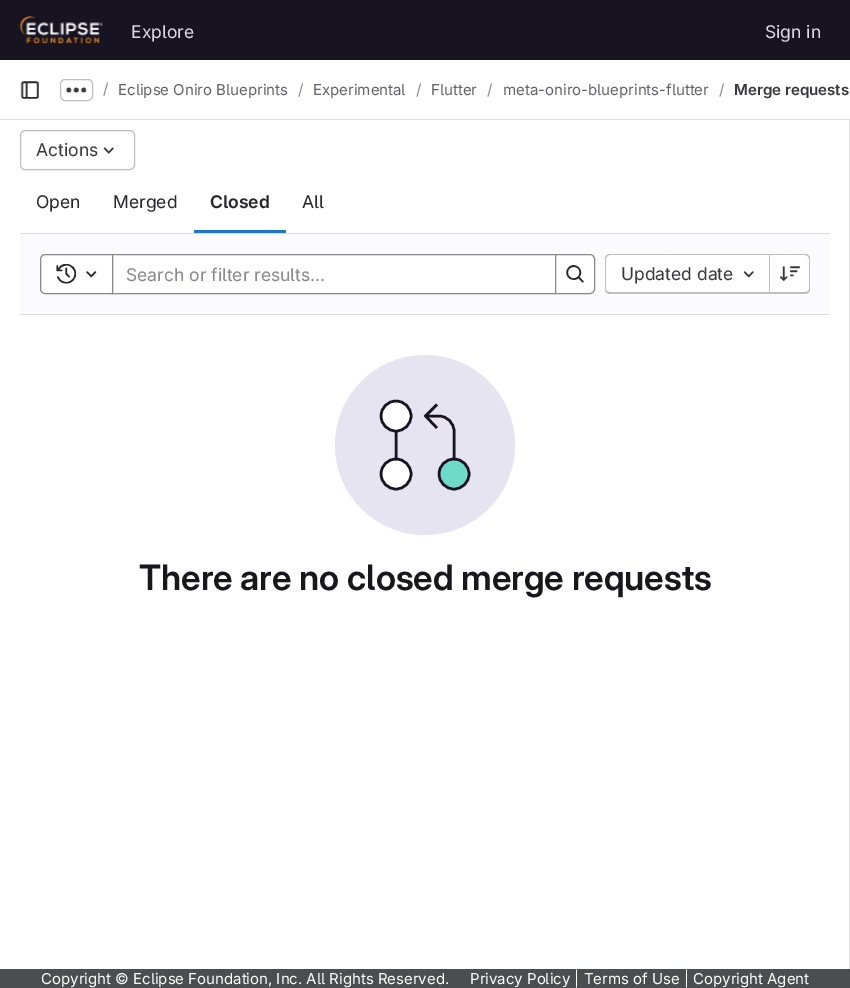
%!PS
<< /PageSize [850 988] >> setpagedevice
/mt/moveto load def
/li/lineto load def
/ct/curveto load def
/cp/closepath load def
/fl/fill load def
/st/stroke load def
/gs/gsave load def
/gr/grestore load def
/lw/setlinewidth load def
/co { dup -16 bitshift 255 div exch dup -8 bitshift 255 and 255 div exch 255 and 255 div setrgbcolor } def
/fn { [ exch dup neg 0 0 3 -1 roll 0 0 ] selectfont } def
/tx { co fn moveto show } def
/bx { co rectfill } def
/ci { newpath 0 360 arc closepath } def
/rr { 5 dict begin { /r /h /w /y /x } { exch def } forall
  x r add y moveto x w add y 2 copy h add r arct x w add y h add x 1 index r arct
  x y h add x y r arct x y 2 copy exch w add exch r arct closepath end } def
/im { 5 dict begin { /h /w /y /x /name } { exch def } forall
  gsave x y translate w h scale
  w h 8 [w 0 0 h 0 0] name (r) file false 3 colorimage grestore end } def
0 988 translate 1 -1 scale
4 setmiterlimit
0 0 850 988 16#FFFFFF bx
0 0 850 60 16#171321 bx
(media/1.raw) 19 16 84 28 im
0 119 850 1 16#DCDCDE bx
(media/2.raw) 20 81 19 18 im
16#BFBFC3 co
60.5 79.5 32 21 4.5 rr st
(media/3.raw) 65 87 22 6 im
20 233 810 1 16#DCDCDE bx
16#BFBFC3 co
20.5 130.5 114 39 4.5 rr st
(media/4.raw) 103 147 11 7 im
194 230 92 3 16#1F75CB bx
849 120 1 849 16#DCDCDE bx
20 234 810 80 16#FBFAFD bx
20 314 810 1 16#DCDCDE bx
113 255 442 38 16#FFFFFF bx
16#89888D co
111.5 254.5 444 39 rectstroke
16#FFFFFF co
45 254.5 mt 112.5 254.5 li 112.5 293.5 li 45 293.5 li 42.5 293.5 40.5 291.5 40.5 289 ct 40.5 259 li 40.5 256.5 42.5 254.5 45 254.5 ct cp gs fl gr
16#89888D co
st
(media/5.raw) 56 263 21 21 im
(media/6.raw) 86 271 11 7 im
16#FFFFFF co
555.5 254.5 mt 590 254.5 li 592.5 254.5 594.5 256.5 594.5 259 ct 594.5 289 li 594.5 291.5 592.5 293.5 590 293.5 ct 555.5 293.5 li cp gs fl gr
16#89888D co
st
(media/7.raw) 566 265 18 18 im
16#FFFFFF co
610 255 mt 769 255 li 769 293 li 610 293 li 608 293 606 291 606 289 ct 606 259 li 606 257 608 255 610 255 ct cp fl
16#BFBFC3 co
610 254 mt 769 254 li 769 294 li 610 294 li 607 294 605 292 605 289 ct 605 259 li 605 256 607 254 610 254 ct cp 610 255 mt 769 255 li 769 292 li 610 292 li 608 292 606 291 606 289 ct 606 259 li 606 257 608 255 610 255 ct cp eofill
(media/8.raw) 743 271 11 7 im
16#FFFFFF co
770 255 mt 805 255 li 807 255 809 257 809 259 ct 809 289 li 809 291 807 293 805 293 ct 770 293 li cp fl
16#BFBFC3 co
770 254 mt 805 254 li 808 254 810 256 810 259 ct 810 289 li 810 292 808 294 805 294 ct 770 294 li cp 770 255 mt 805 255 li 807 255 809 257 809 259 ct 809 289 li 809 291 807 292 805 292 ct 770 292 li cp eofill
769 254 1 40 16#BFBFC3 bx
(media/9.raw) 780 266 20 16 im
16#E7E4F2 co
425 445 90 ci fl
16#FFFFFF co
396 474 15 ci gs fl gr
16#171321 co
2.5 lw
st
2 setlinecap
396 431 mt 396 459 li st
16#FFFFFF co
396 416 15 ci gs fl gr
16#171321 co
0 setlinecap
st
16#6FDAC9 co
454 474 15 ci gs fl gr
16#171321 co
st
2 setlinecap
454 459 mt 454 431 li 454 423 447 416 439 416 ct 427.5 416 li 436 405.5 mt 425.5 416 li 436 427 li st
0 969 850 19 16#4C4D4E bx
(Explore) 131 38 /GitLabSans-Regular 17.5 16#DCDCDE tx
(Sign in) 765 38 /GitLabSans-Regular 17.5 16#DCDCDE tx
(/) 103 94 /GitLabSans-Regular 15 16#89888D tx
(Eclipse Oniro Blueprints) 118 95 /GitLabSans-Regular 15 16#626168 tx
(/) 298 95 /GitLabSans-Regular 15 16#89888D tx
(Experimental) 313 95 /GitLabSans-Regular 15 16#626168 tx
(/) 416 95 /GitLabSans-Regular 15 16#89888D tx
(Flutter) 431 95 /GitLabSans-Regular 15 16#626168 tx
(/) 487 95 /GitLabSans-Regular 15 16#89888D tx
(meta-oniro-blueprints-flutter) 503 95 /GitLabSans-Regular 15 16#626168 tx
(/) 719 95 /GitLabSans-Regular 15 16#89888D tx
(Merge requests) 734 95 /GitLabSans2-SemiBold 15 16#3A383F tx
(Actions) 36 156 /GitLabSans-Regular 17.5 16#3A383F tx
(Open) 36 208 /GitLabSans-Regular 17.5 16#28272D tx
(Merged) 113 208 /GitLabSans-Regular 17.5 16#28272D tx
(Closed) 210 208 /GitLabSans2-SemiBold 17.5 16#28272D tx
(All) 302 208 /GitLabSans-Regular 17.5 16#28272D tx
(Search or filter results…) 126 281 /GitLabSans-Regular 17.5 16#89888D tx
(Updated date) 621 280 /GitLabSans-Regular 17.5 16#3A383F tx
(There are no closed merge requests) 139 590 /GitLabSans-SemiBold 35 16#18171D tx
(Copyright © Eclipse Foundation, Inc. All Rights Reserved.) 41 984 /GitLabSans-Regular 15 16#FFFFFF tx
(Privacy Policy | Terms of Use | Copyright Agent) 470 984 /GitLabSans-Regular 15 16#FFFFFF tx
showpage
